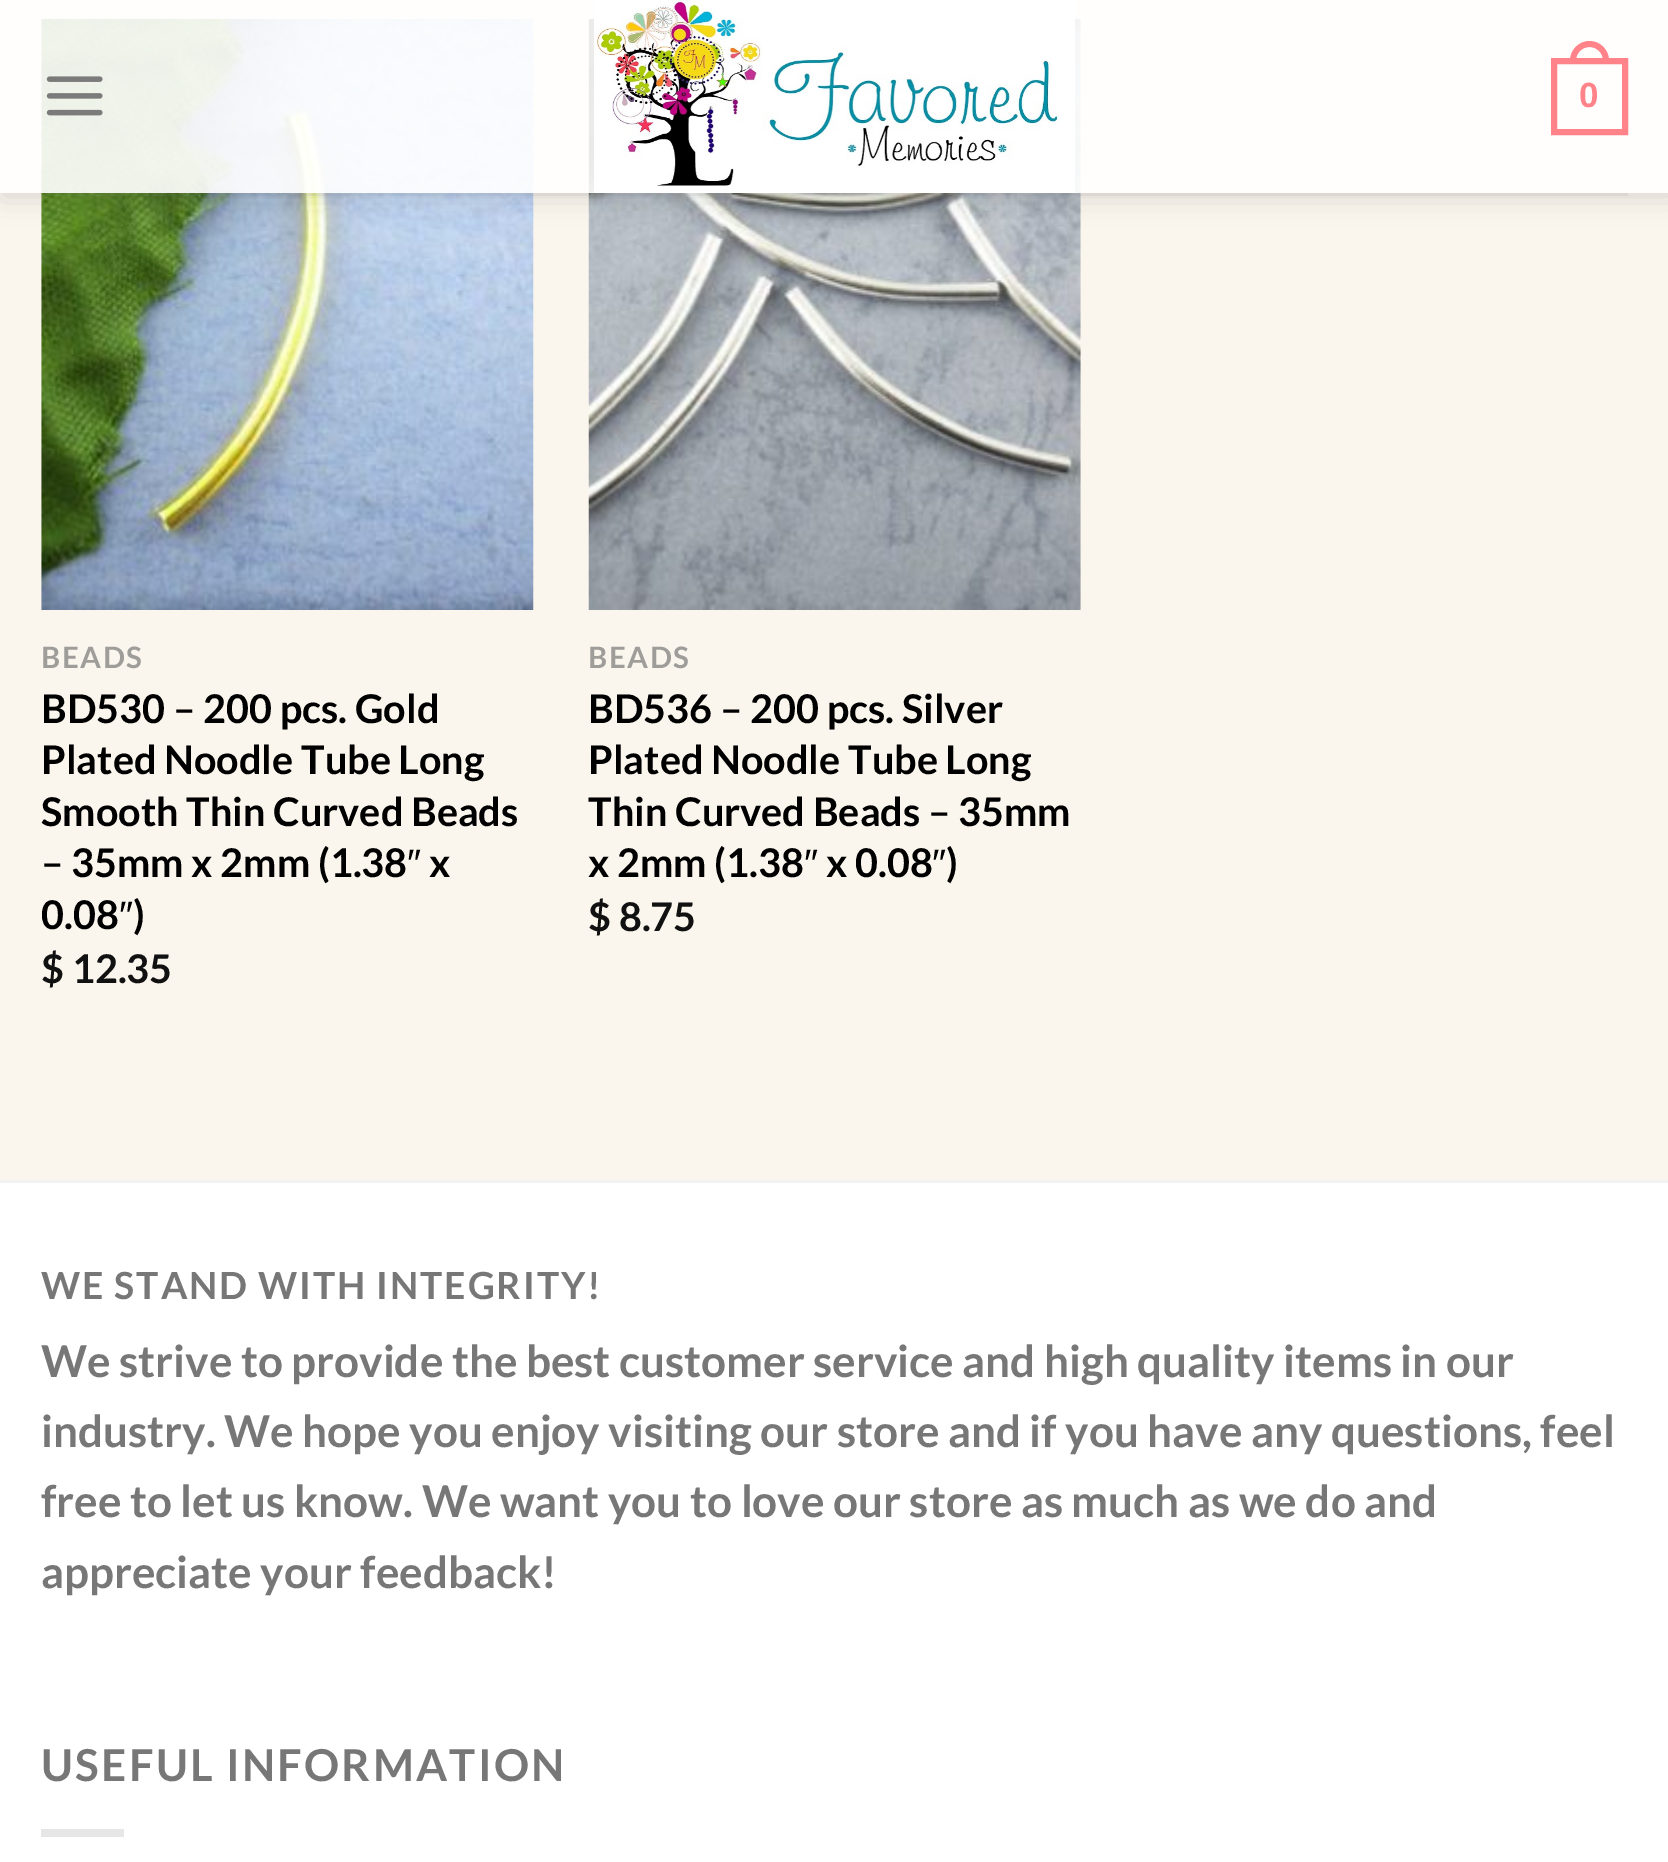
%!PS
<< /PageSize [1668 1862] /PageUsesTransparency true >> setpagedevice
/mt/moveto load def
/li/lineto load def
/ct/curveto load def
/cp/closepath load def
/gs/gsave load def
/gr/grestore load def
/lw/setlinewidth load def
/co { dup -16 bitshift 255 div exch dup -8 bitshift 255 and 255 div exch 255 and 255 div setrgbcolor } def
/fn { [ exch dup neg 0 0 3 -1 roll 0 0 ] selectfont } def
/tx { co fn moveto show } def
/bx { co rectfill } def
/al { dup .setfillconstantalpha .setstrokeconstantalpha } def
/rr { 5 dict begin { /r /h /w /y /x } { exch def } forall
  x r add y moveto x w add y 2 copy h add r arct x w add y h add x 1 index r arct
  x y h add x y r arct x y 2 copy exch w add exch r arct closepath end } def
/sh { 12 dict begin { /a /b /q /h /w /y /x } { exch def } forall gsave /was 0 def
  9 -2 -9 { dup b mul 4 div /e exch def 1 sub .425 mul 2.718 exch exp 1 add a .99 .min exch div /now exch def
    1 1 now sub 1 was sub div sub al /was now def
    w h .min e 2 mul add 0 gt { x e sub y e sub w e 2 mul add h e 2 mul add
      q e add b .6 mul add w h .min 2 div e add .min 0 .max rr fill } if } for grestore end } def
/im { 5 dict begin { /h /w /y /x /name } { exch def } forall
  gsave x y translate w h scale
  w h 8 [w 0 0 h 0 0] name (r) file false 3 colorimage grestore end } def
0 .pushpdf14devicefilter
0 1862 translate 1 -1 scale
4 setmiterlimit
0 0 1668 1862 16#FAF5ED bx
(media/3.raw) 41 18 493 592 im
(media/4.raw) 588 18 493 592 im
gs
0 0 mt 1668 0 li 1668 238 li 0 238 li cp 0 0 mt 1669 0 li 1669 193 li 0 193 li cp eoclip newpath
16#000000 co
3 3 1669 192 0 14 .15 sh
gr
0.9 al
0 0 1668 193 16#FFFFFF bx
1 al
(media/1.raw) 46 76 57 40 im
(media/2.raw) 594 0 481 193 im
16#FF8389 co
6 lw
1554 61 71 71 rectstroke
1589.5 41 mt 1600 41 1609 50 1609 60.5 ct 1609 63 li 1570 63 li 1570 60.5 li 1570 50 1579 41 1589.5 41 ct cp 1589.5 47 mt 1597 47 1603 53 1603 60.5 ct 1603 63 li 1576 63 li 1576 60.5 li 1576 53 1582 47 1589.5 47 ct cp eofill
0.1 al
41 193 1587 3 16#777777 bx
1 al
0 1183 1668 679 16#FFFFFF bx
0 1180 1668 3 16#F2F2F2 bx
41 1829 83 8 16#E6E6E6 bx
(0) 1579 107 /LiberationSans-Bold 35 16#FF8389 tx
/Lato-Bold 29.5 fn
16#9E9D9A co
41 668 mt 1.5 0 (BEADS) ashow
(BD530 – 200 pcs. Gold) 41 723 /Lato-Bold 39.6 16#000000 tx
(Plated Noodle Tube Long) 41 774 /Lato-Bold 39.6 16#000000 tx
(Smooth Thin Curved Beads) 41 826 /Lato-Bold 39.6 16#000000 tx
(– 35mm x 2mm \(1.38) 41 877 /Lato-Bold 39.6 16#000000 tx
(″) 407 877 /LiberationSans-Regular 39.6 16#000000 tx
(x) 429 877 /Lato-Bold 39.6 16#000000 tx
(0.08) 41 929 /Lato-Bold 39.6 16#000000 tx
(″) 119 929 /LiberationSans-Regular 39.6 16#000000 tx
(\)) 133 929 /Lato-Bold 39.6 16#000000 tx
($ 12.35) 41 983 /Lato-Bold 39.6 16#111111 tx
/Lato-Bold 29.5 fn
16#9E9D9A co
588 668 mt 1.5 0 (BEADS) ashow
(BD536 – 200 pcs. Silver) 588 723 /Lato-Bold 39.6 16#000000 tx
(Plated Noodle Tube Long) 588 774 /Lato-Bold 39.6 16#000000 tx
(Thin Curved Beads – 35mm) 588 826 /Lato-Bold 39.6 16#000000 tx
(x 2mm \(1.38) 588 877 /Lato-Bold 39.6 16#000000 tx
(″) 804 877 /LiberationSans-Regular 39.6 16#000000 tx
(x 0.08) 826 877 /Lato-Bold 39.6 16#000000 tx
(″) 932 877 /LiberationSans-Regular 39.6 16#000000 tx
(\)) 946 877 /Lato-Bold 39.6 16#000000 tx
($ 8.75) 588 931 /Lato-Bold 39.6 16#111111 tx
/Lato-Bold 37.4 fn
16#777777 co
41 1299 mt 1.9 0 (WE STAND WITH INTEGRITY!) ashow
(We strive to provide the best customer service and high quality items in our) 41 1377 /Lato-Bold 44 16#777777 tx
(industry. We hope you enjoy visiting our store and if you have any questions, feel) 41 1447 /Lato-Bold 44 16#777777 tx
(free to let us know. We want you to love our store as much as we do and) 41 1517 /Lato-Bold 44 16#777777 tx
(appreciate your feedback!) 41 1588 /Lato-Bold 44 16#777777 tx
41 1781 mt 2.25 0 (USEFUL INFORMATION) ashow
.poppdf14devicefilter showpage
